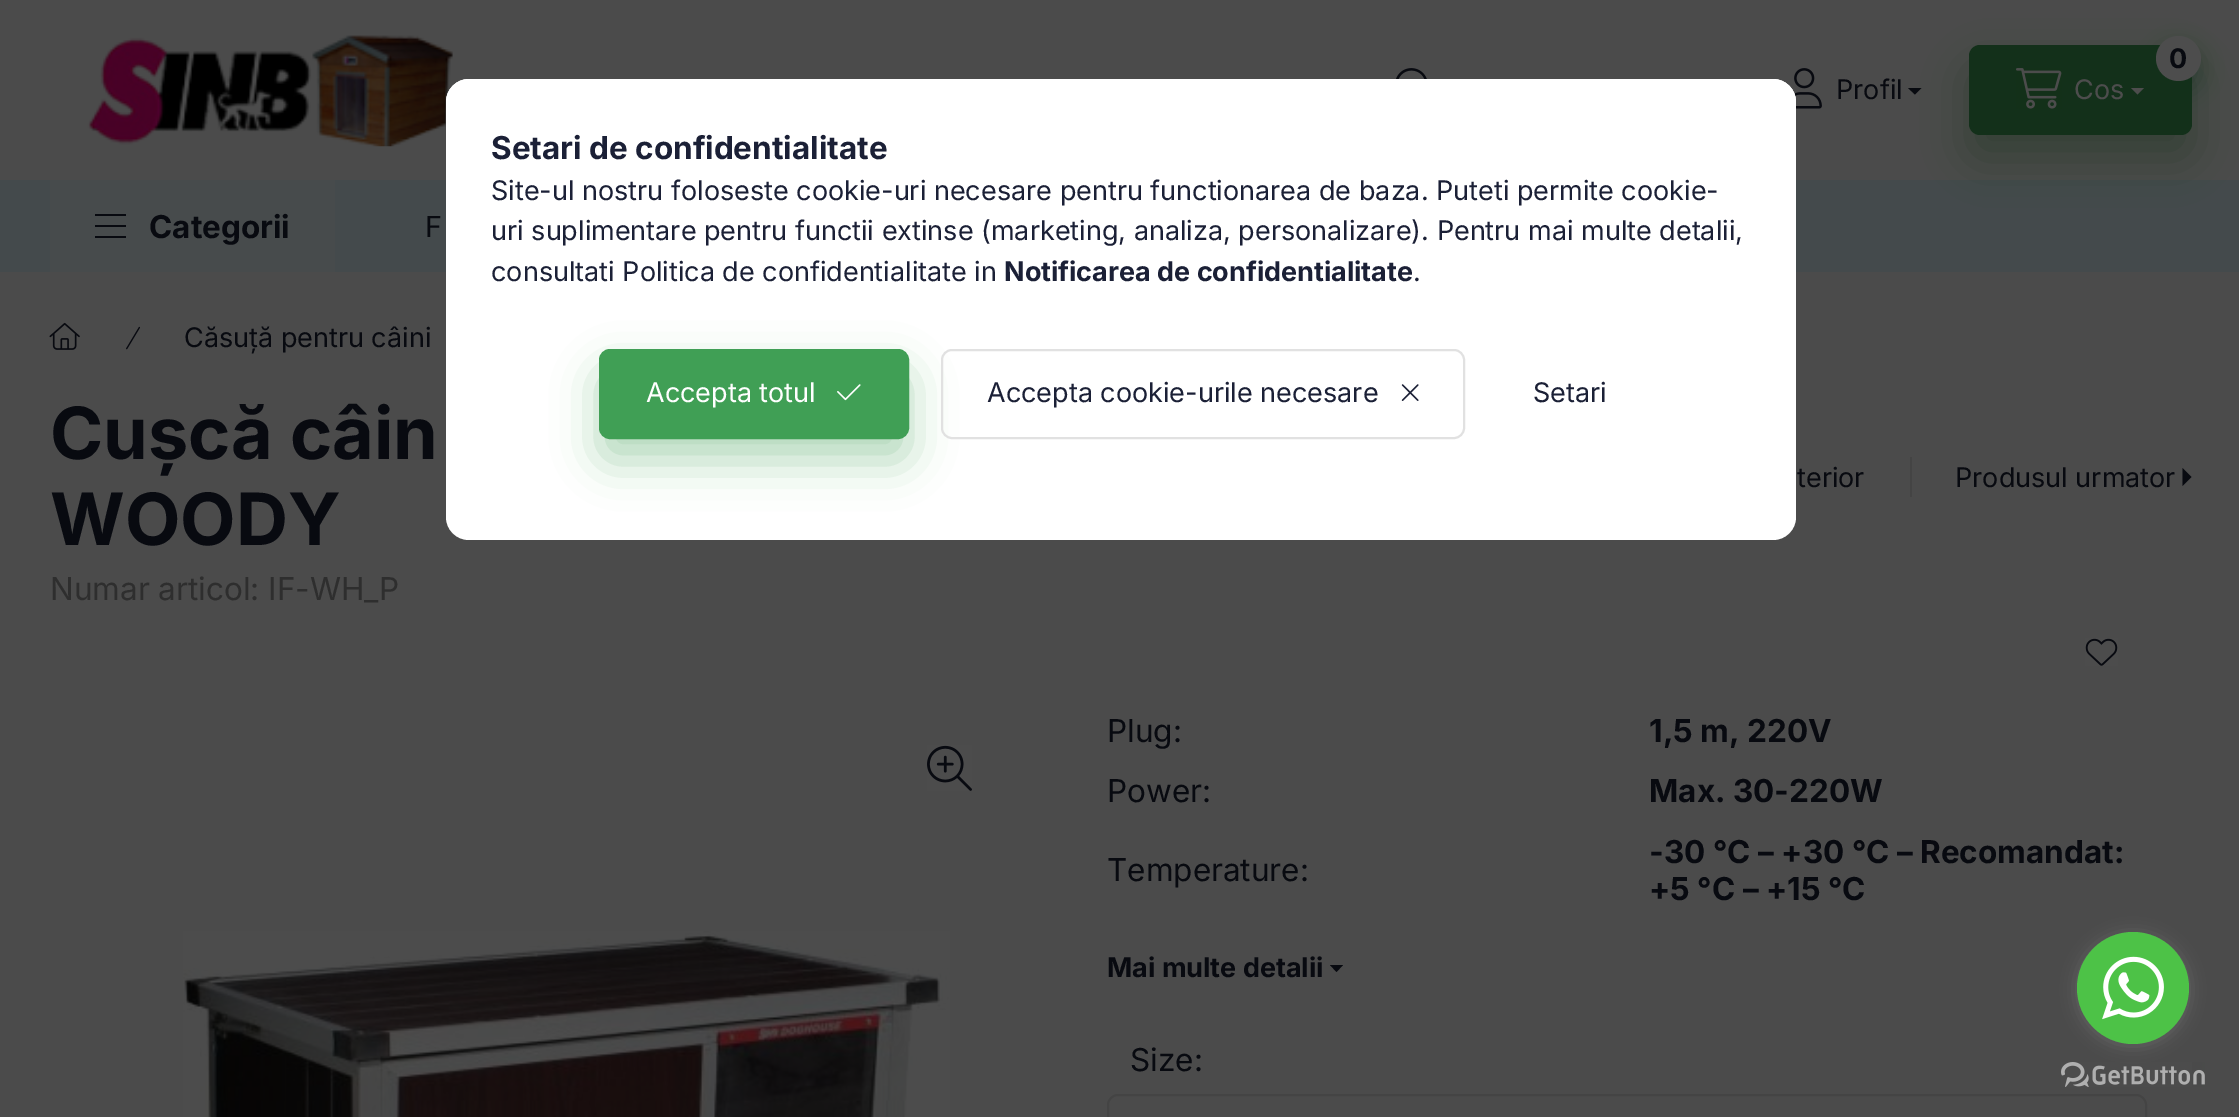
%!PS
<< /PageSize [2239 1117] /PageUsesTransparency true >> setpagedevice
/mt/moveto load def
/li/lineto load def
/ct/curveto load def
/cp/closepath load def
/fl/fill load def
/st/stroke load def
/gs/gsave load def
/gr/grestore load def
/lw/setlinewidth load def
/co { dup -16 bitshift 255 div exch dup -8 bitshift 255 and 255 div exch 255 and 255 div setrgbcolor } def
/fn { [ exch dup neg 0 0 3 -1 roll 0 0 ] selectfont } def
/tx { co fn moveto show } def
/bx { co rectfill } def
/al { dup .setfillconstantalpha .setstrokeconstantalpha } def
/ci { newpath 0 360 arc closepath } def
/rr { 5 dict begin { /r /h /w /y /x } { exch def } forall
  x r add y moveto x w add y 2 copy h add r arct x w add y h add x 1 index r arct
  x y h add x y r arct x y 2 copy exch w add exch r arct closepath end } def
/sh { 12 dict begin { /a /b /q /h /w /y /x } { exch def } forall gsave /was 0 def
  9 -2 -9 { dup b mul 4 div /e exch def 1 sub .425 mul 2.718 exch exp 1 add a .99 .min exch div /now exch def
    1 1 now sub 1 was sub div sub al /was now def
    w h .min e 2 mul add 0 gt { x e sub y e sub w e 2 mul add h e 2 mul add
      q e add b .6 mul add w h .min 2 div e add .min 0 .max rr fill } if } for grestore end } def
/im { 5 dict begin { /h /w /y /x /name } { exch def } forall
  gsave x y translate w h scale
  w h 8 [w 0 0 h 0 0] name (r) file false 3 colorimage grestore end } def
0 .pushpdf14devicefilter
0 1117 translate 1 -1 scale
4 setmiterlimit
0 0 2239 1117 16#4B4B4B bx
(media/1.raw) 87 35 366 112 im
(media/2.raw) 1396 68 31 11 im
0 180 2239 92 16#444A4C bx
16#13301A co
1969 68 223 90 11 22.5 .4 sh
1969 45 223 90 11 rr fl
2156 47 45 45 22.5 11 .4 sh
16#4D4D4D co
2178.5 58.5 22.5 ci fl
(media/3.raw) 2016 68 46 41 im
2131 88 mt 2144 88 li 2137.5 94.5 li cp fl
(media/4.raw) 1794 68 28 41 im
16#080A10 co
1908 88 mt 1921.5 88 li 1915 94.5 li cp fl
50 180 285 92 16#474B4C bx
95 214 31 2 16#080A10 bx
95 225 31 2 16#080A10 bx
95 236 31 2 16#080A10 bx
(media/5.raw) 49 322 31 28 im
(media/6.raw) 126 326 14 24 im
1910 457 2 40 16#444444 bx
16#080A10 co
2182.5 486 mt 2182.5 468 li 2191.5 477 li cp fl
(media/7.raw) 2085 638 33 28 im
(media/8.raw) 927 745 45 46 im
(media/9.raw) 183 931 767 186 im
1330 965 mt 1343 965 li 1336.5 972 li cp fl
16#444444 co
2 lw
1108 1095 1038 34 10 rr st
16#FFFFFF co
446 79 1350 461 23 rr fl
469 79 mt 1773 79 li 1785.5 79 1796 89.5 1796 102 ct 1796 495 li 446 495 li 446 102 li 446 89.5 456.5 79 469 79 ct cp fl
16#409F55 co
599 371 310 90 11 22.5 .4 sh
600 350 308 88 10 rr gs fl gr
st
(media/10.raw) 837 384 24 17 im
16#E1E1E1 co
942 350 522 88 10 rr st
(media/11.raw) 1401 384 18 17 im
(media/13.raw) 2061 1062 144 25 im
16#888888 co
2077 934 112 112 56 8 .4 sh
16#4DC247 co
2133 988 56 ci fl
(media/12.raw) 2102 956 62 64 im
(0) 2169 68 /Inter-Bold 27 16#080A10 tx
(Cos) 2074 99 /Inter-Regular 27 16#4D4D4D tx
(Profil) 1836 99 /Inter-Regular 27 16#080A10 tx
(Categorii) 149 238 /Inter-Bold 31.5 16#080A10 tx
(F) 425 237 /Inter-Regular 29 16#080A10 tx
(Căsuță pentru câini) 184 347 /Inter-Regular 27 16#080A10 tx
(Cușcă câin) 50 459 /Inter-Bold 72 16#080A10 tx
(WOODY) 50 545 /Inter-Bold 72 16#080A10 tx
(terior) 1797 487 /Inter-Regular 27 16#080A10 tx
(Produsul urmator) 1955 487 /Inter-Regular 27 16#080A10 tx
(Numar articol: IF-WH_P) 50 600 /Inter-Regular 31.5 16#2E2E2E tx
(Plug:) 1107 742 /Inter-Regular 31.5 16#080A10 tx
(1,5 m, 220V) 1649 742 /Inter-Bold 31.5 16#080A10 tx
(Power:) 1107 802 /Inter-Regular 31.5 16#080A10 tx
(Max. 30-220W) 1649 802 /Inter-Bold 31.5 16#080A10 tx
(Temperature:) 1107 881 /Inter-Regular 31.5 16#080A10 tx
(-30 °C – +30 °C – Recomandat:) 1649 863 /Inter-Bold 31.5 16#080A10 tx
(+5 °C – +15 °C) 1649 900 /Inter-Bold 31.5 16#080A10 tx
(Mai multe detalii) 1107 977 /Inter-Bold 27 16#080A10 tx
(Size:) 1130 1071 /Inter-Regular 31.5 16#080A10 tx
(Setari de confidentialitate) 491 159 /Inter-Bold 31.5 16#1B2036 tx
(Site-ul nostru foloseste cookie-uri necesare pentru functionarea de baza. Puteti permite cookie-) 491 200 /Inter-Regular 27 16#1B2036 tx
(uri suplimentare pentru functii extinse \(marketing, analiza, personalizare\). Pentru mai multe detalii,) 491 240 /Inter-Regular 27 16#1B2036 tx
(consultati Politica de confidentialitate in) 491 281 /Inter-Regular 27 16#1B2036 tx
(Notificarea de confidentialitate) 1004 281 /Inter-Bold 27 16#1B2036 tx
(.) 1413 281 /Inter-Regular 27 16#1B2036 tx
(Accepta totul) 646 402 /Inter-Regular 27 16#FFFFFF tx
(Accepta cookie-urile necesare) 987 402 /Inter-Regular 27 16#1B2036 tx
(Setari) 1533 402 /Inter-Regular 27 16#1B2036 tx
.poppdf14devicefilter showpage
